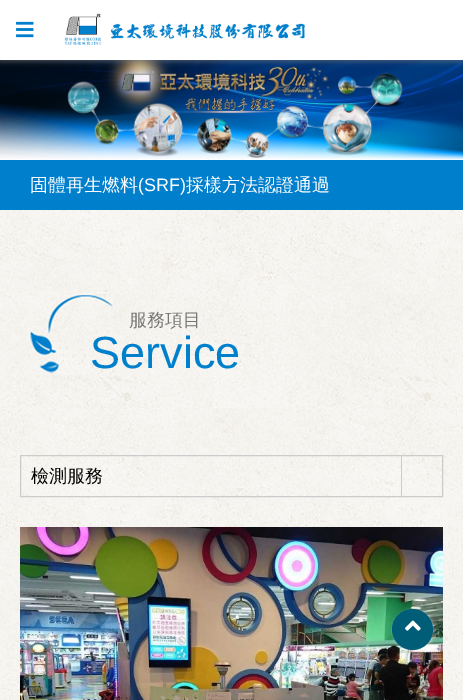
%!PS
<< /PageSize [463 700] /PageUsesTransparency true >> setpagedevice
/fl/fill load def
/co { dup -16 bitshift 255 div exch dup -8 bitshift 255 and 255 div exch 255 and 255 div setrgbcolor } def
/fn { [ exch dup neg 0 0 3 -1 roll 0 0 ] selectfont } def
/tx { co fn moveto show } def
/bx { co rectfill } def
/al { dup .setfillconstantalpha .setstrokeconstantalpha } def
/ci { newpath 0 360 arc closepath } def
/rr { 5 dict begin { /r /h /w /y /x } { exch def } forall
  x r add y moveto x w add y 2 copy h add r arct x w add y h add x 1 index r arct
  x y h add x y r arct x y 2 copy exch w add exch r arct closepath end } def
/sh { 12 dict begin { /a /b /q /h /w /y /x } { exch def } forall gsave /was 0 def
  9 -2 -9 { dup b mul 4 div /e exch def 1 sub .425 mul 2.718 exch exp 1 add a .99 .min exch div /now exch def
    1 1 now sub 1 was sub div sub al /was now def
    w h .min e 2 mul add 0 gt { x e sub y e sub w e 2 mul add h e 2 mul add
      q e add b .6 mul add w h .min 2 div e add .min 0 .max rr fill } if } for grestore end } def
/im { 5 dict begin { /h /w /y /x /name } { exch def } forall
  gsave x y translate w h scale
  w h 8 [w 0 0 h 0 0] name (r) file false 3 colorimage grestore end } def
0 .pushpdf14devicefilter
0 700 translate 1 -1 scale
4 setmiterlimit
0 0 463 700 16#007FCC bx
(media/3.raw) 0 60 463 100 im
16#7E7E7E co
0 2 463 60 0 2.5 .5 sh
0 0 463 60 16#FFFFFF bx
(media/1.raw) 16 21 18 17 im
(media/2.raw) 64 13 242 32 im
(media/4.raw) 0 210 463 490 im
(media/5.raw) 27 290 87 85 im
16#CCCCCC co
20.5 455.5 422 41 rectstroke
401 456 1 40 16#CCCCCC bx
(media/6.raw) 20 527 423 173 im
16#FFFFFF co
393 610 41 41 20.5 1.5 .5 sh
16#005D78 co
412.5 629.5 20.5 ci fl
(media/7.raw) 405 620 16 11 im
(固體再生燃料) 30 191 /WenQuanYiZenHei-Medium 18 16#FFFFFF tx
(\(SRF\)) 138 191 /LiberationSans-Regular 18 16#FFFFFF tx
(採樣方法認證通過) 186 191 /WenQuanYiZenHei-Medium 18 16#FFFFFF tx
(服務項目) 129 326 /WenQuanYiZenHei-Medium 18 16#767676 tx
(Service) 90 368 /LiberationSans-Regular 45 16#007FCC tx
(檢測服務) 31 482 /WenQuanYiZenHei-Medium 18 16#000000 tx
.poppdf14devicefilter showpage
